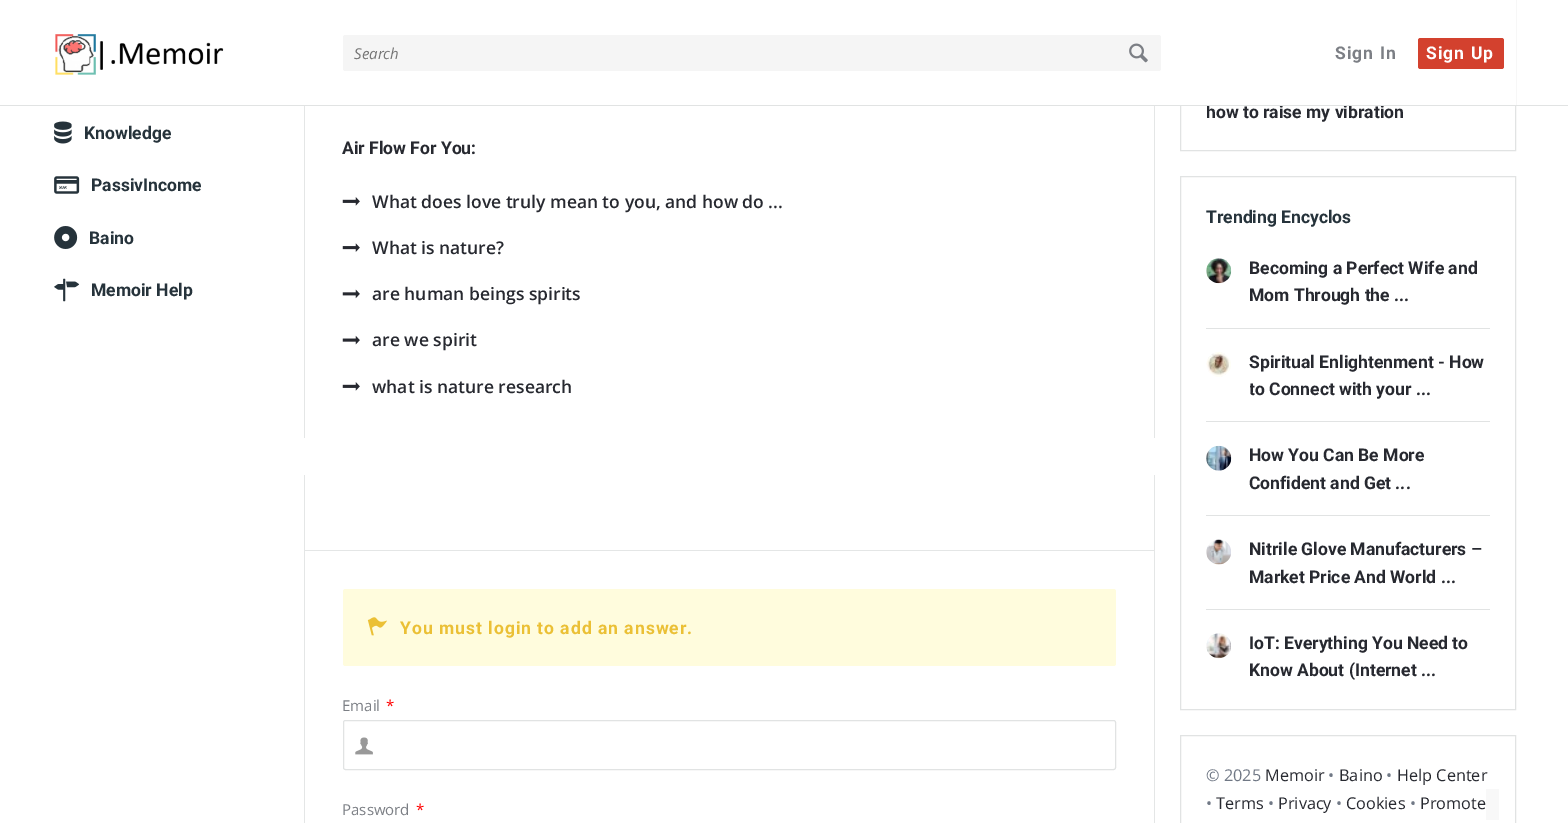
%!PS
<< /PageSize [1568 823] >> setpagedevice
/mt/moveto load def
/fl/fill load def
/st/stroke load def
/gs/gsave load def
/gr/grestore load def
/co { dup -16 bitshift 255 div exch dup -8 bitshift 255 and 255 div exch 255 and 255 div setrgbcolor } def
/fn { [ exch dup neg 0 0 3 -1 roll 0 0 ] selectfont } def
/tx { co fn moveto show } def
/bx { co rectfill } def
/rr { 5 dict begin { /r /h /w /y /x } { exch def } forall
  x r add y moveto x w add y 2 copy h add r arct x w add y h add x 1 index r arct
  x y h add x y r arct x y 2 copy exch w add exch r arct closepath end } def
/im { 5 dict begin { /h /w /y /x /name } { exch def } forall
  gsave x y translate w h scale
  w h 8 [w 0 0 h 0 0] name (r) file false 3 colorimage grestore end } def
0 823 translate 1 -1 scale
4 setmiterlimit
0 0 1568 823 16#FFFFFF bx
(media/1.raw) 55 34 169 41 im
16#F5F5F5 co
343 35 818 36 2.5 rr fl
(media/2.raw) 1129 43 19 20 im
(media/3.raw) 54 121 18 23 im
(media/4.raw) 54 176 26 18 im
(media/5.raw) 54 226 24 23 im
(media/6.raw) 54 278 26 24 im
1154 106 1 332 16#E4E6E6 bx
304 106 1 332 16#E4E6E6 bx
(media/7.raw) 342 197 18 9 im
(media/8.raw) 342 243 18 9 im
(media/9.raw) 342 289 18 10 im
(media/10.raw) 342 335 18 10 im
(media/7.raw) 342 382 18 9 im
1154 475 1 348 16#E4E6E6 bx
304 475 1 348 16#E4E6E6 bx
305 550 849 1 16#E4E6E6 bx
16#FFFCDD co
343 589 773 77 2.5 rr fl
(media/11.raw) 367 617 20 19 im
16#E1E3E3 co
343.5 720.5 772 49 2 rr st
(media/12.raw) 355 737 18 18 im
1180.5 -.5 335 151 rectstroke
1180.5 176.5 335 533 rectstroke
1206 328 284 1 16#E1E3E3 bx
(media/13.raw) 1206 258 26 26 im
1206 421 284 1 16#E1E3E3 bx
(media/14.raw) 1206 352 25 25 im
1206 515 284 1 16#E1E3E3 bx
(media/15.raw) 1206 445 26 26 im
1206 609 284 1 16#E1E3E3 bx
(media/16.raw) 1206 539 25 26 im
(media/17.raw) 1206 633 25 26 im
1180.5 735.5 335 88 rectstroke
1486 789 13 31 16#F8F8F8 bx
(Search) 354 59 /OpenSans-Italic 15 16#757575 tx
(Knowledge) 84 139 /Roboto-Bold 17.5 16#26333B tx
(PassivIncome) 91 191 /Roboto-Bold 17.5 16#26333B tx
(Baino) 89 244 /Roboto-Bold 17.5 16#26333B tx
(Memoir Help) 91 296 /Roboto-Bold 17.5 16#26333B tx
(Air Flow For You:) 342 154 /Roboto-Bold 17.5 16#272930 tx
(What does love truly mean to you, and how do ...) 372 208 /OpenSans-SemiBold 17.5 16#272930 tx
(What is nature?) 372 254 /OpenSans-SemiBold 17.5 16#272930 tx
(are human beings spirits) 372 300 /OpenSans-SemiBold 17.5 16#272930 tx
(are we spirit) 372 346 /OpenSans-SemiBold 17.5 16#272930 tx
(what is nature research) 372 393 /OpenSans-SemiBold 17.5 16#272930 tx
/Roboto-Bold 17.5 fn
16#EBC035 co
400 634 mt 1 0 (You must login to add an answer.) ashow
(Email) 342 711 /OpenSans-Regular 15 16#7C7F85 tx
(*) 386 711 /OpenSans-Regular 15 16#FF0000 tx
(Password) 342 815 /OpenSans-Regular 15 16#7C7F85 tx
(*) 416 815 /OpenSans-Regular 15 16#FF0000 tx
(how to raise my vibration) 1206 118 /Roboto-Bold 17.5 16#272930 tx
1180 0 336 105 16#FFFFFF bx
16#D3412E co
1418 38 86 31 2.5 rr fl
16#FFFFFF co
1426 59 mt 1 0 (Sign Up) ashow
16#7C7F85 co
1335 59 mt 1 0 (Sign In) ashow
0 105 1568 1 16#E1E3E3 bx
(Trending Encyclos) 1206 223 /Roboto-Bold 17.5 16#26333B tx
(Becoming a Perfect Wife and) 1249 274 /Roboto-Bold 17.5 16#272930 tx
(Mom Through the ...) 1249 301 /Roboto-Bold 17.5 16#272930 tx
(Spiritual Enlightenment - How) 1249 368 /Roboto-Bold 17.5 16#272930 tx
gs
1250 348 240 55 rectclip
(to Connect with your ...) 1249 395 /Roboto-Bold 17.5 16#272930 tx
gr
(How You Can Be More) 1249 461 /Roboto-Bold 17.5 16#272930 tx
(Confident and Get ...) 1249 489 /Roboto-Bold 17.5 16#272930 tx
(Nitrile Glove Manufacturers –) 1249 555 /Roboto-Bold 17.5 16#272930 tx
(Market Price And World ...) 1249 583 /Roboto-Bold 17.5 16#272930 tx
(IoT: Everything You Need to) 1249 649 /Roboto-Bold 17.5 16#272930 tx
(Know About \(Internet ...) 1249 676 /Roboto-Bold 17.5 16#272930 tx
(© 2025) 1206 781 /OpenSans-Regular 16.25 16#707885 tx
(Memoir) 1265 781 /OpenSans-Regular 16.25 16#272930 tx
(•) 1328 781 /OpenSans-Regular 16.25 16#707885 tx
(Baino) 1339 781 /OpenSans-Regular 16.25 16#272930 tx
(•) 1386 781 /OpenSans-Regular 16.25 16#707885 tx
(Help Center) 1397 781 /OpenSans-Regular 16.25 16#272930 tx
(•) 1206 809 /OpenSans-Regular 16.25 16#707885 tx
(Terms) 1216 809 /OpenSans-Regular 16.25 16#272930 tx
(•) 1268 809 /OpenSans-Regular 16.25 16#707885 tx
(Privacy) 1278 809 /OpenSans-Regular 16.25 16#272930 tx
(•) 1336 809 /OpenSans-Regular 16.25 16#707885 tx
(Cookies) 1346 809 /OpenSans-Regular 16.25 16#272930 tx
(•) 1410 809 /OpenSans-Regular 16.25 16#707885 tx
(Promote) 1420 809 /OpenSans-Regular 16.25 16#272930 tx
showpage
